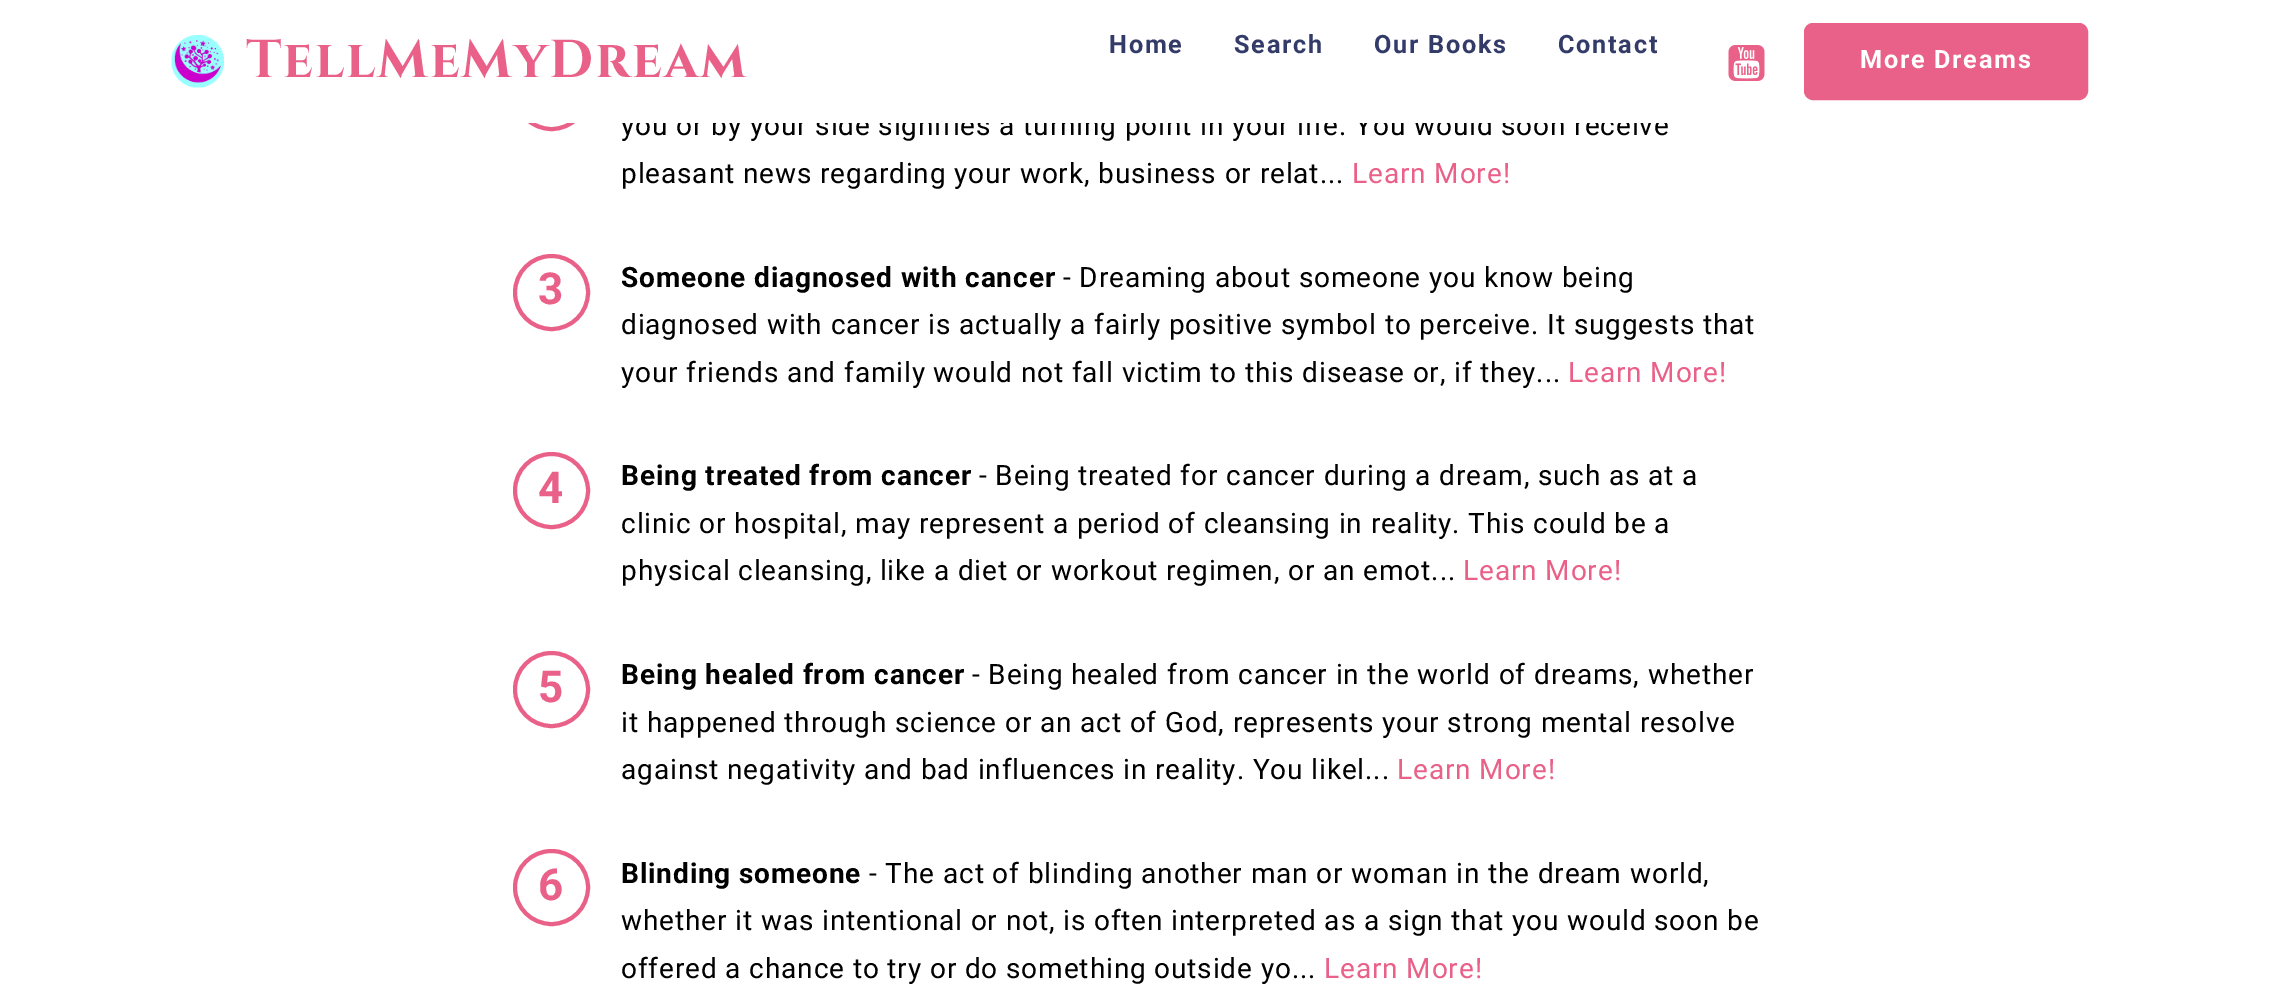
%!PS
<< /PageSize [2282 988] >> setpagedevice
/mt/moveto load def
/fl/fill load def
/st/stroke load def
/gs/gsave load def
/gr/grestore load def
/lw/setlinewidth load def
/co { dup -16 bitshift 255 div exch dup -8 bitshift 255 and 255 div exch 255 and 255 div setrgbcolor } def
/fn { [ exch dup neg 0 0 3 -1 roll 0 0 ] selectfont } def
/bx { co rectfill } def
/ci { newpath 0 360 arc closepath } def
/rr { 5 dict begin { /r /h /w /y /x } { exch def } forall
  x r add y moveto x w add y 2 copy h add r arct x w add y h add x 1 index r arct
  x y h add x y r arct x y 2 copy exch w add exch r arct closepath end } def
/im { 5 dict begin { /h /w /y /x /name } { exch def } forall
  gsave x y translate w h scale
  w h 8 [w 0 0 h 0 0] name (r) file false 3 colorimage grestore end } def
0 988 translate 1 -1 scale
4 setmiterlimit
0 0 2282 988 16#FFFFFF bx
(media/1.raw) 171 35 53 53 im
(media/2.raw) 1728 45 37 36 im
16#E96188 co
1806 25 280 73 7 rr gs fl gr
4 lw
st
551.5 92.5 36.5 ci st
551.5 292.5 36.5 ci st
551.5 490.5 36.5 ci st
551.5 689.5 36.5 ci st
551.5 887.5 36.5 ci st
/Roboto-Bold 25.25 fn
16#333B69 co
1109 53 mt 1.75 0 (Home) ashow
1234 53 mt 1.75 0 (Search) ashow
1374 53 mt 1.75 0 (Our Books) ashow
1558 53 mt 1.75 0 (Contact) ashow
16#FFFFFF co
1860 68 mt 1.75 0 (More Dreams) ashow
/Roboto-Regular 28 fn
16#000000 co
621 135 mt .88 0 (you or by your side signifies a turning point in your life. You would soon receive) ashow
513 54 1154 69 16#FFFFFF bx
/Cinzel-Bold 53.25 fn
16#E96188 co
246 77 mt 1.75 0 (TellMeMyDream) ashow
/Roboto-Regular 28 fn
16#000000 co
621 183 mt .88 0 (pleasant news regarding your work, business or relat...) ashow
16#E96188 co
1352 183 mt .88 0 (Learn More!) ashow
/Roboto-Bold 44 fn
538 304 mt .88 0 (3) ashow
/Roboto-Bold 28 fn
16#000000 co
621 287 mt .88 0 (Someone diagnosed with cancer) ashow
/Roboto-Regular 28 fn
1063 287 mt .88 0 (- Dreaming about someone you know being) ashow
621 334 mt .88 0 (diagnosed with cancer is actually a fairly positive symbol to perceive. It suggests that) ashow
621 382 mt .88 0 (your friends and family would not fall victim to this disease or, if they...) ashow
16#E96188 co
1568 382 mt .88 0 (Learn More!) ashow
/Roboto-Bold 44 fn
538 503 mt .88 0 (4) ashow
/Roboto-Bold 28 fn
16#000000 co
621 485 mt .88 0 (Being treated from cancer) ashow
/Roboto-Regular 28 fn
979 485 mt .88 0 (- Being treated for cancer during a dream, such as at a) ashow
621 533 mt .88 0 (clinic or hospital, may represent a period of cleansing in reality. This could be a) ashow
621 580 mt .88 0 (physical cleansing, like a diet or workout regimen, or an emot...) ashow
16#E96188 co
1463 580 mt .88 0 (Learn More!) ashow
/Roboto-Bold 44 fn
538 702 mt .88 0 (5) ashow
/Roboto-Bold 28 fn
16#000000 co
621 684 mt .88 0 (Being healed from cancer) ashow
/Roboto-Regular 28 fn
972 684 mt .88 0 (- Being healed from cancer in the world of dreams, whether) ashow
621 732 mt .88 0 (it happened through science or an act of God, represents your strong mental resolve) ashow
621 779 mt .88 0 (against negativity and bad influences in reality. You likel...) ashow
16#E96188 co
1397 779 mt .88 0 (Learn More!) ashow
/Roboto-Bold 44 fn
538 900 mt .88 0 (6) ashow
/Roboto-Bold 28 fn
16#000000 co
621 883 mt .88 0 (Blinding someone) ashow
/Roboto-Regular 28 fn
869 883 mt .88 0 (- The act of blinding another man or woman in the dream world,) ashow
621 930 mt .88 0 (whether it was intentional or not, is often interpreted as a sign that you would soon be) ashow
621 978 mt .88 0 (offered a chance to try or do something outside yo...) ashow
16#E96188 co
1324 978 mt .88 0 (Learn More!) ashow
showpage
